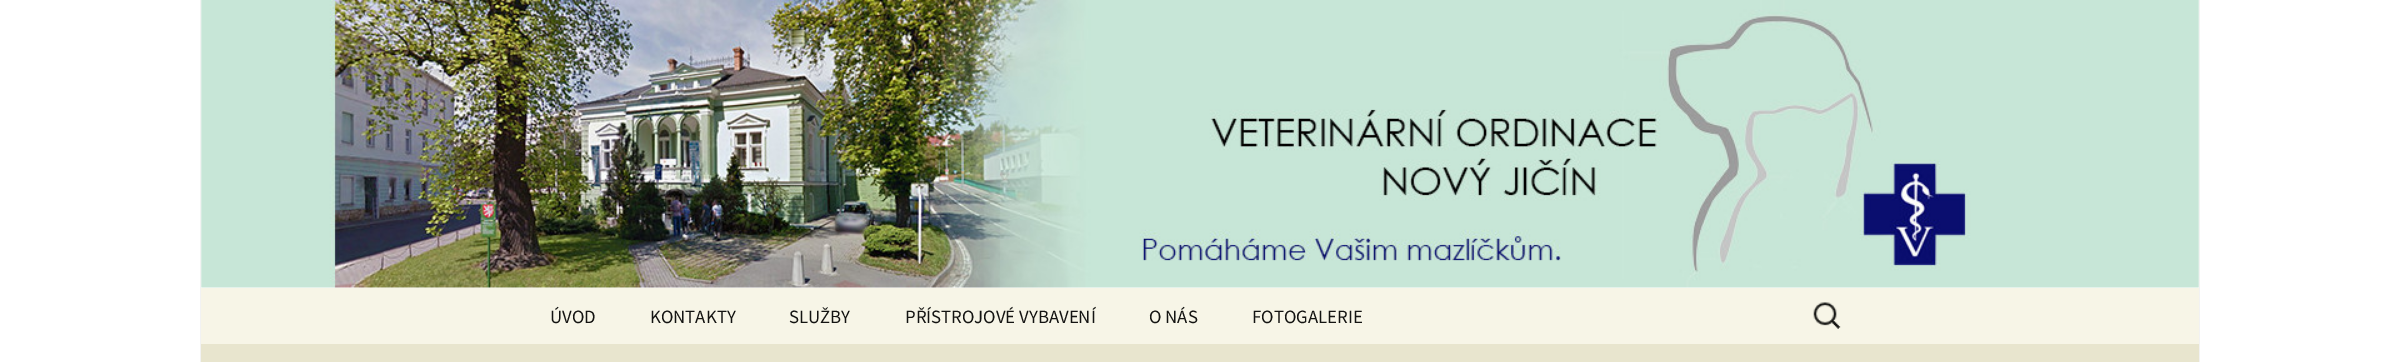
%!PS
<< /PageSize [2400 362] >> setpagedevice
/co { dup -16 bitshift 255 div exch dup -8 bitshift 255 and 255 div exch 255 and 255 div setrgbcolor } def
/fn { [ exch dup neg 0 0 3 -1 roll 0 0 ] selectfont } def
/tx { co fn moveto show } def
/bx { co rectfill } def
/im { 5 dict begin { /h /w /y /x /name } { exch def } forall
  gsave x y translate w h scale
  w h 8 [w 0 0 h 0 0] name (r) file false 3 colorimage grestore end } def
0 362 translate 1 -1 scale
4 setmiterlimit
0 0 2400 362 16#FFFFFF bx
2199 0 1 362 16#F2F2F2 bx
200 0 1 362 16#F2F2F2 bx
(media/1.raw) 201 0 1998 288 im
201 288 1998 56 16#F7F5E7 bx
(media/2.raw) 1813 302 28 27 im
201 344 1998 18 16#E8E5CE bx
(ÚVOD) 550 323 /SourceSansPro-Regular 18.75 16#141412 tx
(KONTAKTY) 650 323 /SourceSansPro-Regular 18.75 16#141412 tx
(SLUŽBY) 789 323 /SourceSansPro-Regular 18.75 16#141412 tx
(PŘÍSTROJOVÉ VYBAVENÍ) 905 323 /SourceSansPro-Regular 18.75 16#141412 tx
(O NÁS) 1149 323 /SourceSansPro-Regular 18.75 16#141412 tx
(FOTOGALERIE) 1252 323 /SourceSansPro-Regular 18.75 16#141412 tx
showpage
